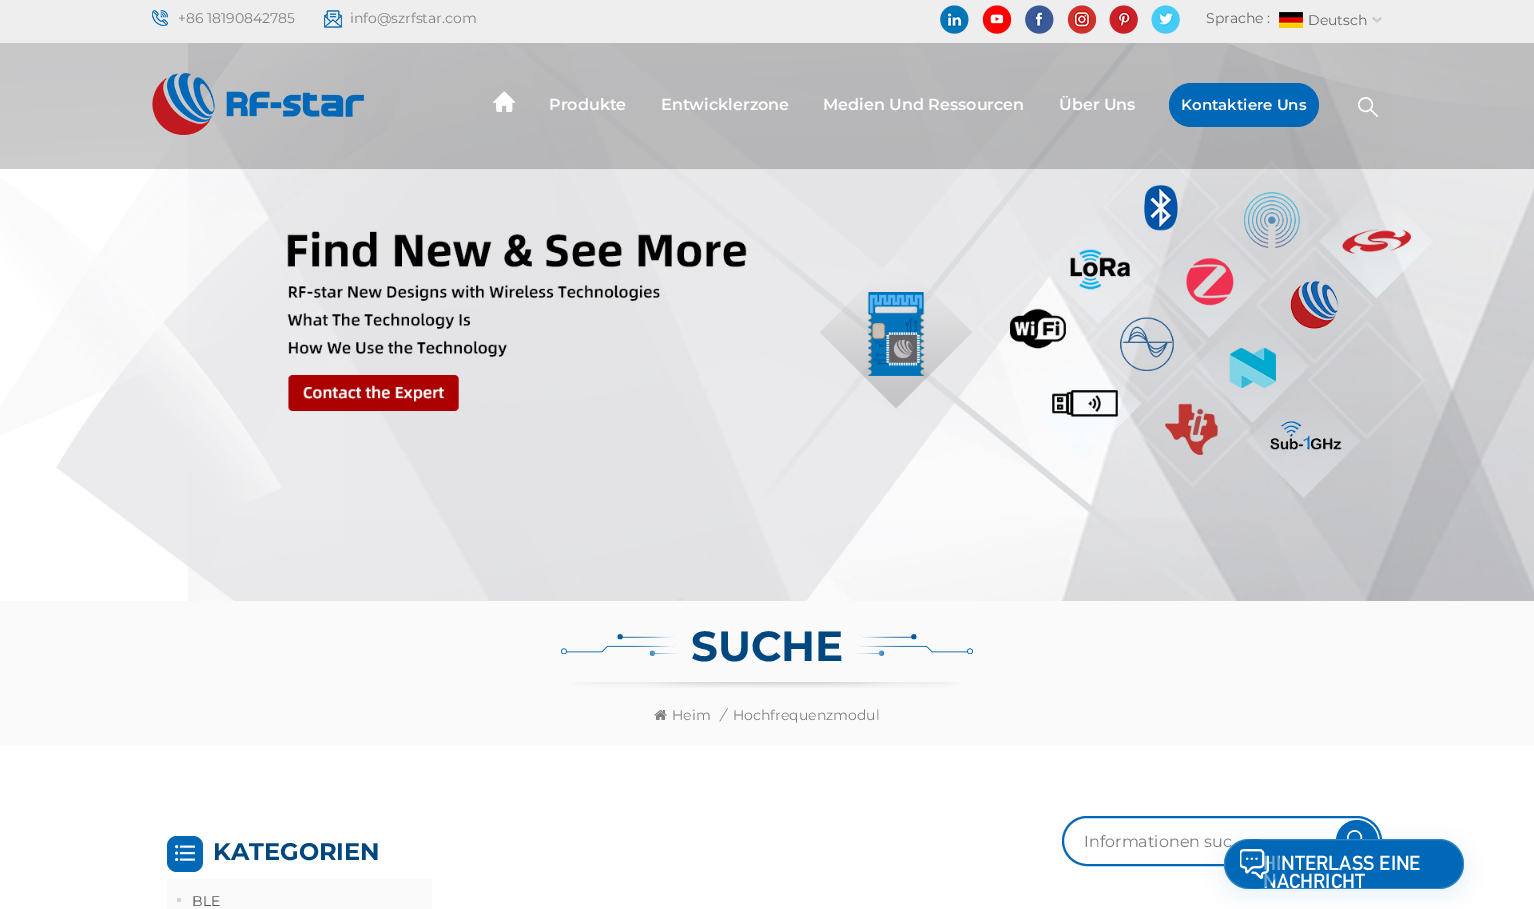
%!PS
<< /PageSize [1534 909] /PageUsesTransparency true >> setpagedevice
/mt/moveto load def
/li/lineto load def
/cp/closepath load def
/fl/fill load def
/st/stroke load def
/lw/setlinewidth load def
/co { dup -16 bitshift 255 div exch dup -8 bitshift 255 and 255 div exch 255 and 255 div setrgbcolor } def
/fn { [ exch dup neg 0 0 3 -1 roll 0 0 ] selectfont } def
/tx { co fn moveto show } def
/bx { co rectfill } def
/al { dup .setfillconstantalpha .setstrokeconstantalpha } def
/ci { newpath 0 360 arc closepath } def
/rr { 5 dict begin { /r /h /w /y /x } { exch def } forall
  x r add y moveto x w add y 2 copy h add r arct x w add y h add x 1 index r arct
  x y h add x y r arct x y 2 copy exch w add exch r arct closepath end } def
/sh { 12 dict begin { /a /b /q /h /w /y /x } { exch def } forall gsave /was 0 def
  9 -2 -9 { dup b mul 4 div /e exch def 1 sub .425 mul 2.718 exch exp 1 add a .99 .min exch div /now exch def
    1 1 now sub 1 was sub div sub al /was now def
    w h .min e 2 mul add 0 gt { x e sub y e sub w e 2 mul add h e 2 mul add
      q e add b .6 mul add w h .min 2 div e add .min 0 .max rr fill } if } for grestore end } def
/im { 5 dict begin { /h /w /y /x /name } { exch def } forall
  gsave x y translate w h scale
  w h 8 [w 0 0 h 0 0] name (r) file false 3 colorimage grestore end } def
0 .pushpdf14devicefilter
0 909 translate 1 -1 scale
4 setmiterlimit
0 0 1534 909 16#FFFFFF bx
0 0 1534 43 16#EEEEEE bx
(media/1.raw) 152 10 16 16 im
(media/2.raw) 324 10 18 18 im
(media/3.raw) 940 5 29 29 im
(media/4.raw) 982 5 30 29 im
(media/5.raw) 1025 5 29 29 im
(media/6.raw) 1067 5 30 29 im
(media/7.raw) 1109 5 29 29 im
(media/8.raw) 1151 5 29 29 im
(media/9.raw) 1279 12 24 16 im
16#CCCCCC co
1376 21 mt 1380.5 17 li 1382 18.5 li 1377.5 22.5 li cp fl
1373.5 17 mt 1378 21 li 1376.5 22.5 li 1372 18.5 li cp fl
(media/13.raw) 0 43 1534 558 im
0.2 al
0 43 1534 126 16#000000 bx
1 al
(media/10.raw) 152 73 212 62 im
(media/11.raw) 493 91 22 21 im
16#0068B7 co
1169 83 150 44 22 rr fl
(media/12.raw) 1358 97 20 20 im
0 601 1534 145 16#FAFAFA bx
(media/14.raw) 561 634 119 22 im
(media/15.raw) 854 634 119 22 im
(media/16.raw) 572 682 388 6 im
(media/17.raw) 654 710 13 10 im
16#0068B7 co
167 836 36 36 10 rr fl
(media/18.raw) 175 845 20 16 im
167 879 265 30 16#FAFAFA bx
16#CED2D9 co
179 900 2 ci fl
16#0068B7 co
2 lw
1063 817 318 48 24 rr st
1357 841 21 ci fl
(media/19.raw) 1347 830 16 9 im
1224 844 240 50 25 10 .1 sh
(+86 18190842785) 178 23 /Montserrat-Regular 14 16#808080 tx
(info@szrfstar.com) 350 23 /Montserrat-Regular 14 16#808080 tx
(Sprache :) 1206 23 /Montserrat-Regular 14 16#666666 tx
(Deutsch) 1308 25 /Montserrat-Regular 14 16#666666 tx
(Produkte) 549 110 /Montserrat-SemiBold 16 16#FFFFFF tx
(Entwicklerzone) 661 110 /Montserrat-SemiBold 16 16#FFFFFF tx
(Medien Und Ressourcen) 823 110 /Montserrat-SemiBold 16 16#FFFFFF tx
(Über Uns) 1059 110 /Montserrat-SemiBold 16 16#FFFFFF tx
(Kontaktiere Uns) 1181 110 /Montserrat-SemiBold 15 16#FFFFFF tx
(SUCHE) 691 661 /Montserrat-Bold 42 16#004780 tx
(Heim) 672 720 /Montserrat-Regular 14 16#808080 tx
(/) 720 720 /Montserrat-Italic 14 16#808080 tx
(Hochfrequenzmodul) 733 720 /Montserrat-Regular 14 16#808080 tx
(KATEGORIEN) 213 860 /Montserrat-Bold 24 16#004780 tx
(BLE) 192 906 /Montserrat-Regular 14 16#555555 tx
(Informationen suc) 1084 847 /Montserrat-Regular 16 16#808080 tx
16#0068B7 co
1224 839 240 50 25 rr fl
0.2 al
16#FFFFFF co
1 lw
1224.5 839.5 239 49 24.5 rr st
1 al
(HINTERLASS EINE) 1263 870 /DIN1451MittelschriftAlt-Regular 20 16#FFFFFF tx
(NACHRICHT) 1263 888 /DIN1451MittelschriftAlt-Regular 20 16#FFFFFF tx
0.25 al
16#0068B7 co
1255 864 25 ci fl
1255 864 25 ci fl
1255 864 25 ci fl
1 al
(media/20.raw) 1240 849 29 30 im
.poppdf14devicefilter showpage
